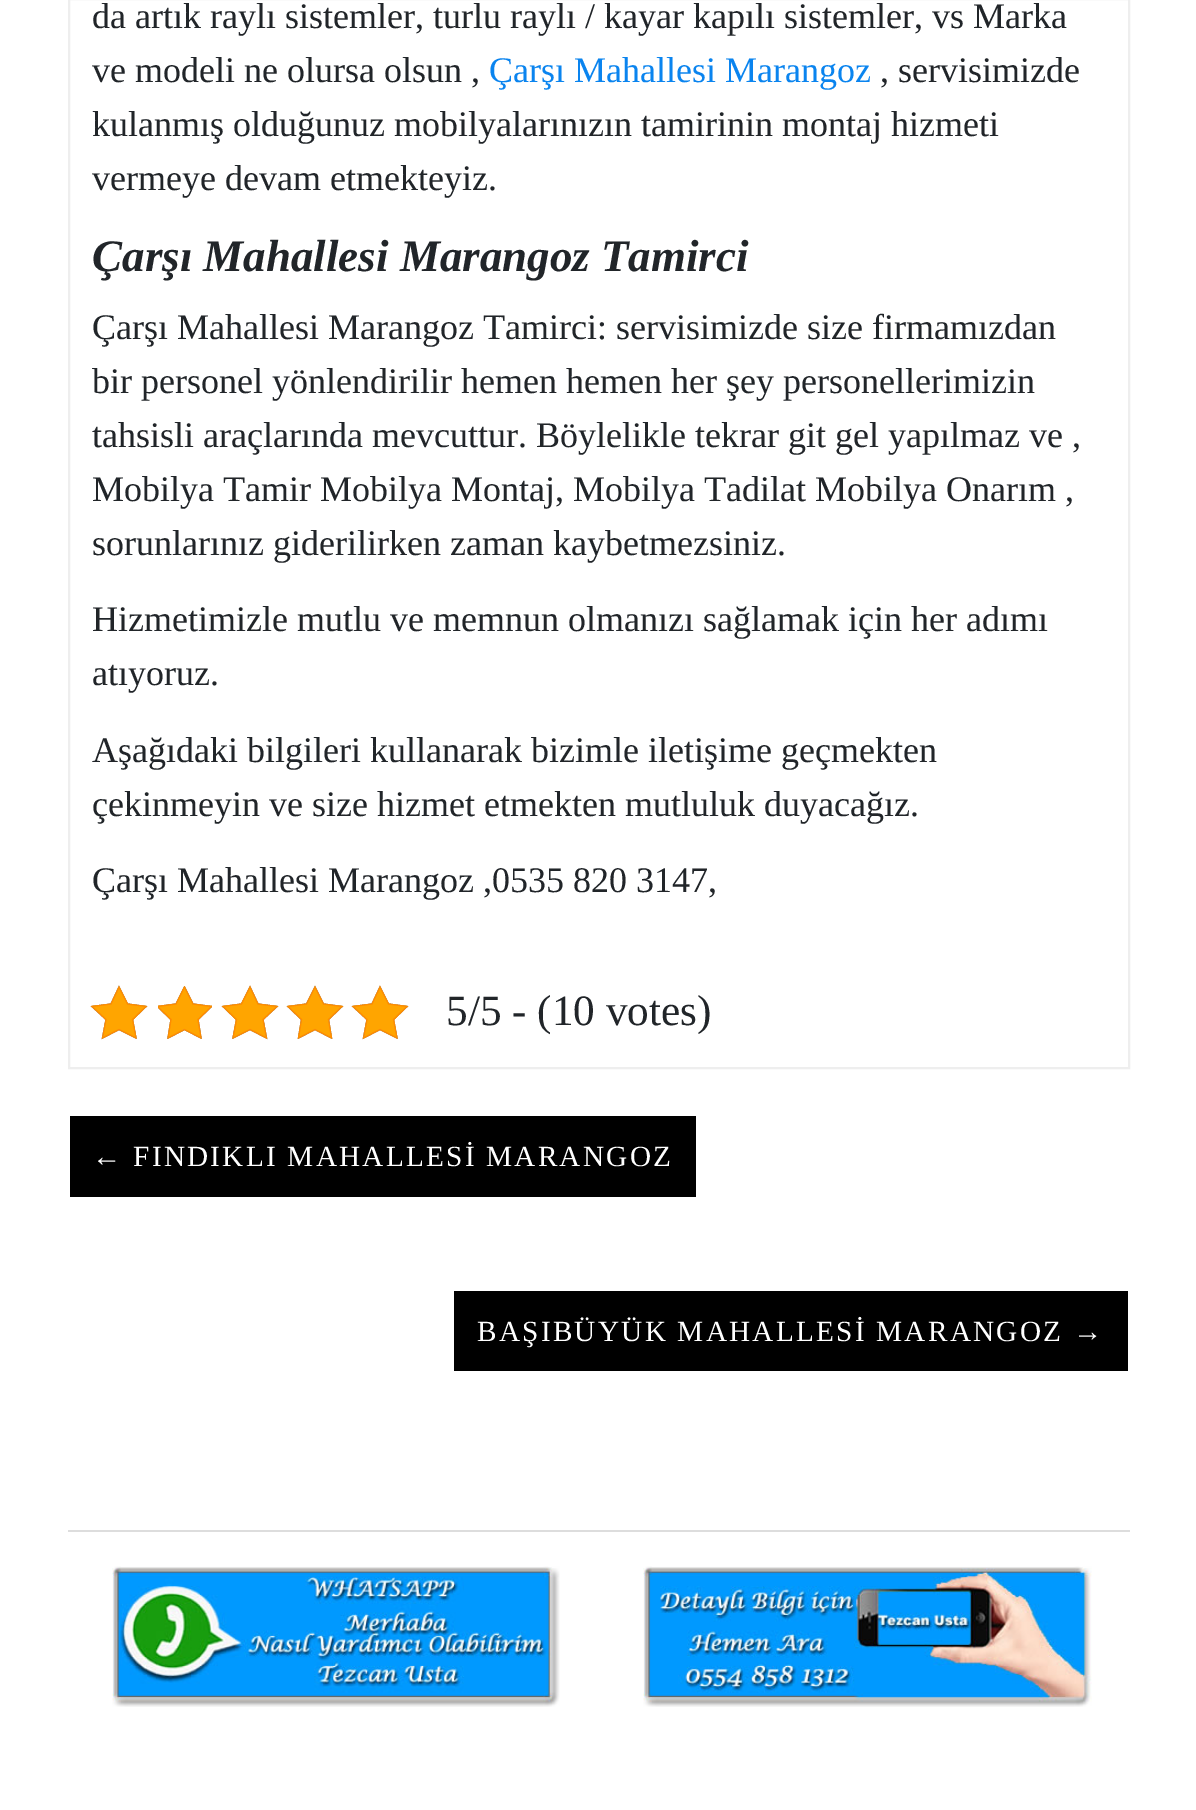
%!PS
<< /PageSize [1196 1810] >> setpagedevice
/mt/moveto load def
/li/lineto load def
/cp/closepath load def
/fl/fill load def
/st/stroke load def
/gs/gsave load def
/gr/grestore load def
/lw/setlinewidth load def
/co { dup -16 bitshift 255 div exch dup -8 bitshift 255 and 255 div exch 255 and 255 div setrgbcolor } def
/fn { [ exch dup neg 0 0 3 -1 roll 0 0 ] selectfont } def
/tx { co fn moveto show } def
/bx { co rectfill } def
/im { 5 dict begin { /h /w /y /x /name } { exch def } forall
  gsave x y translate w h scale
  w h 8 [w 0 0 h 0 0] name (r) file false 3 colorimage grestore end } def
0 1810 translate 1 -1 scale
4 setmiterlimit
0 0 1196 1810 16#FFFFFF bx
16#EEEEEE co
2 lw
69 -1 1060 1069 rectstroke
16#777777 co
1.1 lw
119 987 mt 127.5 1004 li 146 1006.5 li 132.5 1019.5 li 136 1038 li 119 1029.5 li 102.5 1038 li 106 1019.5 li 92 1006.5 li 111 1004 li cp st
gs
158 986 54 54 rectclip
184.5 987 mt 193 1004 li 211.5 1006.5 li 198 1019.5 li 201 1038 li 184.5 1029.5 li 168 1038 li 171 1019.5 li 157.5 1006.5 li 176 1004 li cp st
gr
250 987 mt 258 1004 li 277 1006.5 li 263 1019.5 li 266.5 1038 li 250 1029.5 li 233 1038 li 236.5 1019.5 li 223 1006.5 li 241.5 1004 li cp st
315 987 mt 323.5 1004 li 342 1006.5 li 328.5 1019.5 li 331.5 1038 li 315 1029.5 li 298.5 1038 li 301.5 1019.5 li 288 1006.5 li 306.5 1004 li cp st
380 987 mt 388.5 1004 li 407 1006.5 li 393.5 1019.5 li 397 1038 li 380 1029.5 li 363.5 1038 li 367 1019.5 li 353 1006.5 li 372 1004 li cp st
16#FFA500 co
119 987 mt 128 1004 li 146 1006 li 133 1020 li 136 1038 li 119 1029 li 103 1038 li 106 1020 li 92 1006 li 111 1004 li cp fl
16#FF8C00 co
119 987 mt 127.5 1004 li 146 1006.5 li 132.5 1019.5 li 136 1038 li 119 1029.5 li 102.5 1038 li 106 1019.5 li 92 1006.5 li 111 1004 li cp st
16#FFA500 co
184 987 mt 193 1004 li 212 1006 li 198 1020 li 201 1038 li 184 1029 li 168 1038 li 171 1020 li 158 1006 li 176 1004 li cp fl
gs
158 986 54 54 rectclip
16#FF8C00 co
184.5 987 mt 193 1004 li 211.5 1006.5 li 198 1019.5 li 201 1038 li 184.5 1029.5 li 168 1038 li 171 1019.5 li 157.5 1006.5 li 176 1004 li cp st
gr
250 987 mt 258 1004 li 277 1006 li 263 1020 li 266 1038 li 250 1029 li 233 1038 li 236 1020 li 223 1006 li 241 1004 li cp fl
16#FF8C00 co
250 987 mt 258 1004 li 277 1006.5 li 263 1019.5 li 266.5 1038 li 250 1029.5 li 233 1038 li 236.5 1019.5 li 223 1006.5 li 241.5 1004 li cp st
16#FFA500 co
315 987 mt 323 1004 li 342 1006 li 328 1020 li 332 1038 li 315 1029 li 298 1038 li 302 1020 li 288 1006 li 307 1004 li cp fl
16#FF8C00 co
315 987 mt 323.5 1004 li 342 1006.5 li 328.5 1019.5 li 331.5 1038 li 315 1029.5 li 298.5 1038 li 301.5 1019.5 li 288 1006.5 li 306.5 1004 li cp st
16#FFA500 co
380 987 mt 389 1004 li 407 1006 li 394 1020 li 397 1038 li 380 1029 li 364 1038 li 367 1020 li 353 1006 li 372 1004 li cp fl
16#FF8C00 co
380 987 mt 388.5 1004 li 407 1006.5 li 393.5 1019.5 li 397 1038 li 380 1029.5 li 363.5 1038 li 367 1019.5 li 353 1006.5 li 372 1004 li cp st
70 1116 626 81 16#000000 bx
454 1291 674 80 16#000000 bx
68 1530 1062 2 16#DDDDDD bx
(media/1.raw) 643 1566 449 141 im
(media/2.raw) 112 1566 448 141 im
(da artık raylı sistemler, turlu raylı / kayar kapılı sistemler, vs Marka) 92 28 /LiberationSerif-Regular 36 16#212529 tx
(ve modeli ne olursa olsun ,) 92 82 /LiberationSerif-Regular 36 16#212529 tx
(Çarşı Mahallesi Marangoz) 489 82 /LiberationSerif-Regular 36 16#0A84EF tx
(, servisimizde) 880 82 /LiberationSerif-Regular 36 16#212529 tx
(kulanmış olduğunuz mobilyalarınızın tamirinin montaj hizmeti) 92 136 /LiberationSerif-Regular 36 16#212529 tx
(vermeye devam etmekteyiz.) 92 190 /LiberationSerif-Regular 36 16#212529 tx
(Çarşı Mahallesi Marangoz Tamirci) 92 271 /LiberationSerif-BoldItalic 45 16#212529 tx
(Çarşı Mahallesi Marangoz Tamirci: servisimizde size firmamızdan) 92 339 /LiberationSerif-Regular 36 16#212529 tx
(bir personel yönlendirilir hemen hemen her şey personellerimizin) 92 393 /LiberationSerif-Regular 36 16#212529 tx
(tahsisli araçlarında mevcuttur. Böylelikle tekrar git gel yapılmaz ve ,) 92 447 /LiberationSerif-Regular 36 16#212529 tx
(Mobilya Tamir Mobilya Montaj, Mobilya Tadilat Mobilya Onarım ,) 92 501 /LiberationSerif-Regular 36 16#212529 tx
(sorunlarınız giderilirken zaman kaybetmezsiniz.) 92 555 /LiberationSerif-Regular 36 16#212529 tx
(Hizmetimizle mutlu ve memnun olmanızı sağlamak için her adımı) 92 631 /LiberationSerif-Regular 36 16#212529 tx
(atıyoruz.) 92 685 /LiberationSerif-Regular 36 16#212529 tx
(Aşağıdaki bilgileri kullanarak bizimle iletişime geçmekten) 92 762 /LiberationSerif-Regular 36 16#212529 tx
(çekinmeyin ve size hizmet etmekten mutluluk duyacağız.) 92 816 /LiberationSerif-Regular 36 16#212529 tx
(Çarşı Mahallesi Marangoz ,0535 820 3147,) 92 892 /LiberationSerif-Regular 36 16#212529 tx
(5/5 - \(10 votes\)) 446 1025 /LiberationSerif-Regular 43.25 16#212529 tx
/LiberationSerif-Regular 29.25 fn
16#FFFFFF co
92 1166 mt 2.25 0 (← FINDIKLI MAHALLESİ MARANGOZ) ashow
477 1341 mt 2.25 0 (BAŞIBÜYÜK MAHALLESİ MARANGOZ →) ashow
showpage
